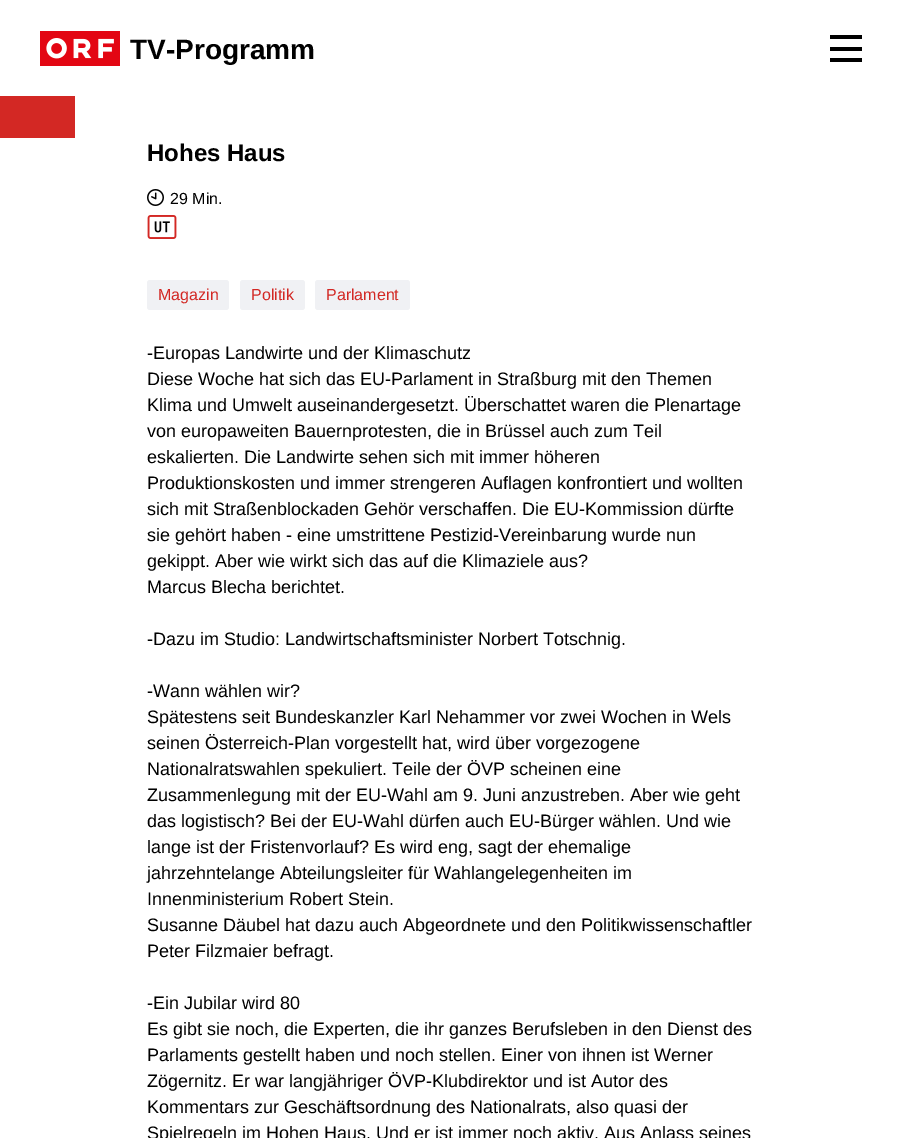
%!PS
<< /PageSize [900 1138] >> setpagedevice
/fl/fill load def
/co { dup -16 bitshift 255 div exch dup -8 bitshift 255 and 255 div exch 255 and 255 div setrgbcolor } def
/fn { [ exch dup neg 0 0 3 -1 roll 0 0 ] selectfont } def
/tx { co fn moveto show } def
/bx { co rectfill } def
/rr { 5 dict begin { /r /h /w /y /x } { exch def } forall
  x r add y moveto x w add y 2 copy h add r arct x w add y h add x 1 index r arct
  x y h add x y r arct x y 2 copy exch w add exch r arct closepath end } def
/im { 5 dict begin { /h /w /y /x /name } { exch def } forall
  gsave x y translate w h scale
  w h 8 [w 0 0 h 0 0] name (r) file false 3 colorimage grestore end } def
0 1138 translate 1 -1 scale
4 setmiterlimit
0 0 900 1138 16#FFFFFF bx
(media/1.raw) 40 31 80 35 im
830 35 32 4 16#000000 bx
830 47 32 4 16#000000 bx
830 58 32 4 16#000000 bx
0 96 75 42 16#D32824 bx
(media/2.raw) 147 189 17 17 im
(media/3.raw) 147 215 30 24 im
16#F0F1F4 co
147 280 82 30 3 rr fl
240 280 65 30 3 rr fl
315 280 95 30 3 rr fl
(TV-Programm) 130 59 /LiberationSans-Bold 28 16#000000 tx
(Hohes Haus) 147 161 /LiberationSans-Bold 24 16#000000 tx
(29 Min.) 170 204 /LiberationSans-Regular 16 16#000000 tx
(Magazin) 158 300 /LiberationSans-Regular 16 16#D32824 tx
(Politik) 251 300 /LiberationSans-Regular 16 16#D32824 tx
(Parlament) 326 300 /LiberationSans-Regular 16 16#D32824 tx
(-Europas Landwirte und der Klimaschutz) 147 359 /LiberationSans-Regular 18 16#000000 tx
(Diese Woche hat sich das EU-Parlament in Straßburg mit den Themen) 147 385 /LiberationSans-Regular 18 16#000000 tx
(Klima und Umwelt auseinandergesetzt. Überschattet waren die Plenartage) 147 411 /LiberationSans-Regular 18 16#000000 tx
(von europaweiten Bauernprotesten, die in Brüssel auch zum Teil) 147 437 /LiberationSans-Regular 18 16#000000 tx
(eskalierten. Die Landwirte sehen sich mit immer höheren) 147 463 /LiberationSans-Regular 18 16#000000 tx
(Produktionskosten und immer strengeren Auflagen konfrontiert und wollten) 147 489 /LiberationSans-Regular 18 16#000000 tx
(sich mit Straßenblockaden Gehör verschaffen. Die EU-Kommission dürfte) 147 515 /LiberationSans-Regular 18 16#000000 tx
(sie gehört haben - eine umstrittene Pestizid-Vereinbarung wurde nun) 147 541 /LiberationSans-Regular 18 16#000000 tx
(gekippt. Aber wie wirkt sich das auf die Klimaziele aus?) 147 567 /LiberationSans-Regular 18 16#000000 tx
(Marcus Blecha berichtet.) 147 593 /LiberationSans-Regular 18 16#000000 tx
(-Dazu im Studio: Landwirtschaftsminister Norbert Totschnig.) 147 645 /LiberationSans-Regular 18 16#000000 tx
(-Wann wählen wir?) 147 697 /LiberationSans-Regular 18 16#000000 tx
(Spätestens seit Bundeskanzler Karl Nehammer vor zwei Wochen in Wels) 147 723 /LiberationSans-Regular 18 16#000000 tx
(seinen Österreich-Plan vorgestellt hat, wird über vorgezogene) 147 749 /LiberationSans-Regular 18 16#000000 tx
(Nationalratswahlen spekuliert. Teile der ÖVP scheinen eine) 147 775 /LiberationSans-Regular 18 16#000000 tx
(Zusammenlegung mit der EU-Wahl am 9. Juni anzustreben. Aber wie geht) 147 801 /LiberationSans-Regular 18 16#000000 tx
(das logistisch? Bei der EU-Wahl dürfen auch EU-Bürger wählen. Und wie) 147 827 /LiberationSans-Regular 18 16#000000 tx
(lange ist der Fristenvorlauf? Es wird eng, sagt der ehemalige) 147 853 /LiberationSans-Regular 18 16#000000 tx
(jahrzehntelange Abteilungsleiter für Wahlangelegenheiten im) 147 879 /LiberationSans-Regular 18 16#000000 tx
(Innenministerium Robert Stein.) 147 905 /LiberationSans-Regular 18 16#000000 tx
(Susanne Däubel hat dazu auch Abgeordnete und den Politikwissenschaftler) 147 931 /LiberationSans-Regular 18 16#000000 tx
(Peter Filzmaier befragt.) 147 957 /LiberationSans-Regular 18 16#000000 tx
(-Ein Jubilar wird 80) 147 1009 /LiberationSans-Regular 18 16#000000 tx
(Es gibt sie noch, die Experten, die ihr ganzes Berufsleben in den Dienst des) 147 1035 /LiberationSans-Regular 18 16#000000 tx
(Parlaments gestellt haben und noch stellen. Einer von ihnen ist Werner) 147 1061 /LiberationSans-Regular 18 16#000000 tx
(Zögernitz. Er war langjähriger ÖVP-Klubdirektor und ist Autor des) 147 1087 /LiberationSans-Regular 18 16#000000 tx
(Kommentars zur Geschäftsordnung des Nationalrats, also quasi der) 147 1113 /LiberationSans-Regular 18 16#000000 tx
(Spielregeln im Hohen Haus. Und er ist immer noch aktiv. Aus Anlass seines) 147 1139 /LiberationSans-Regular 18 16#000000 tx
showpage
